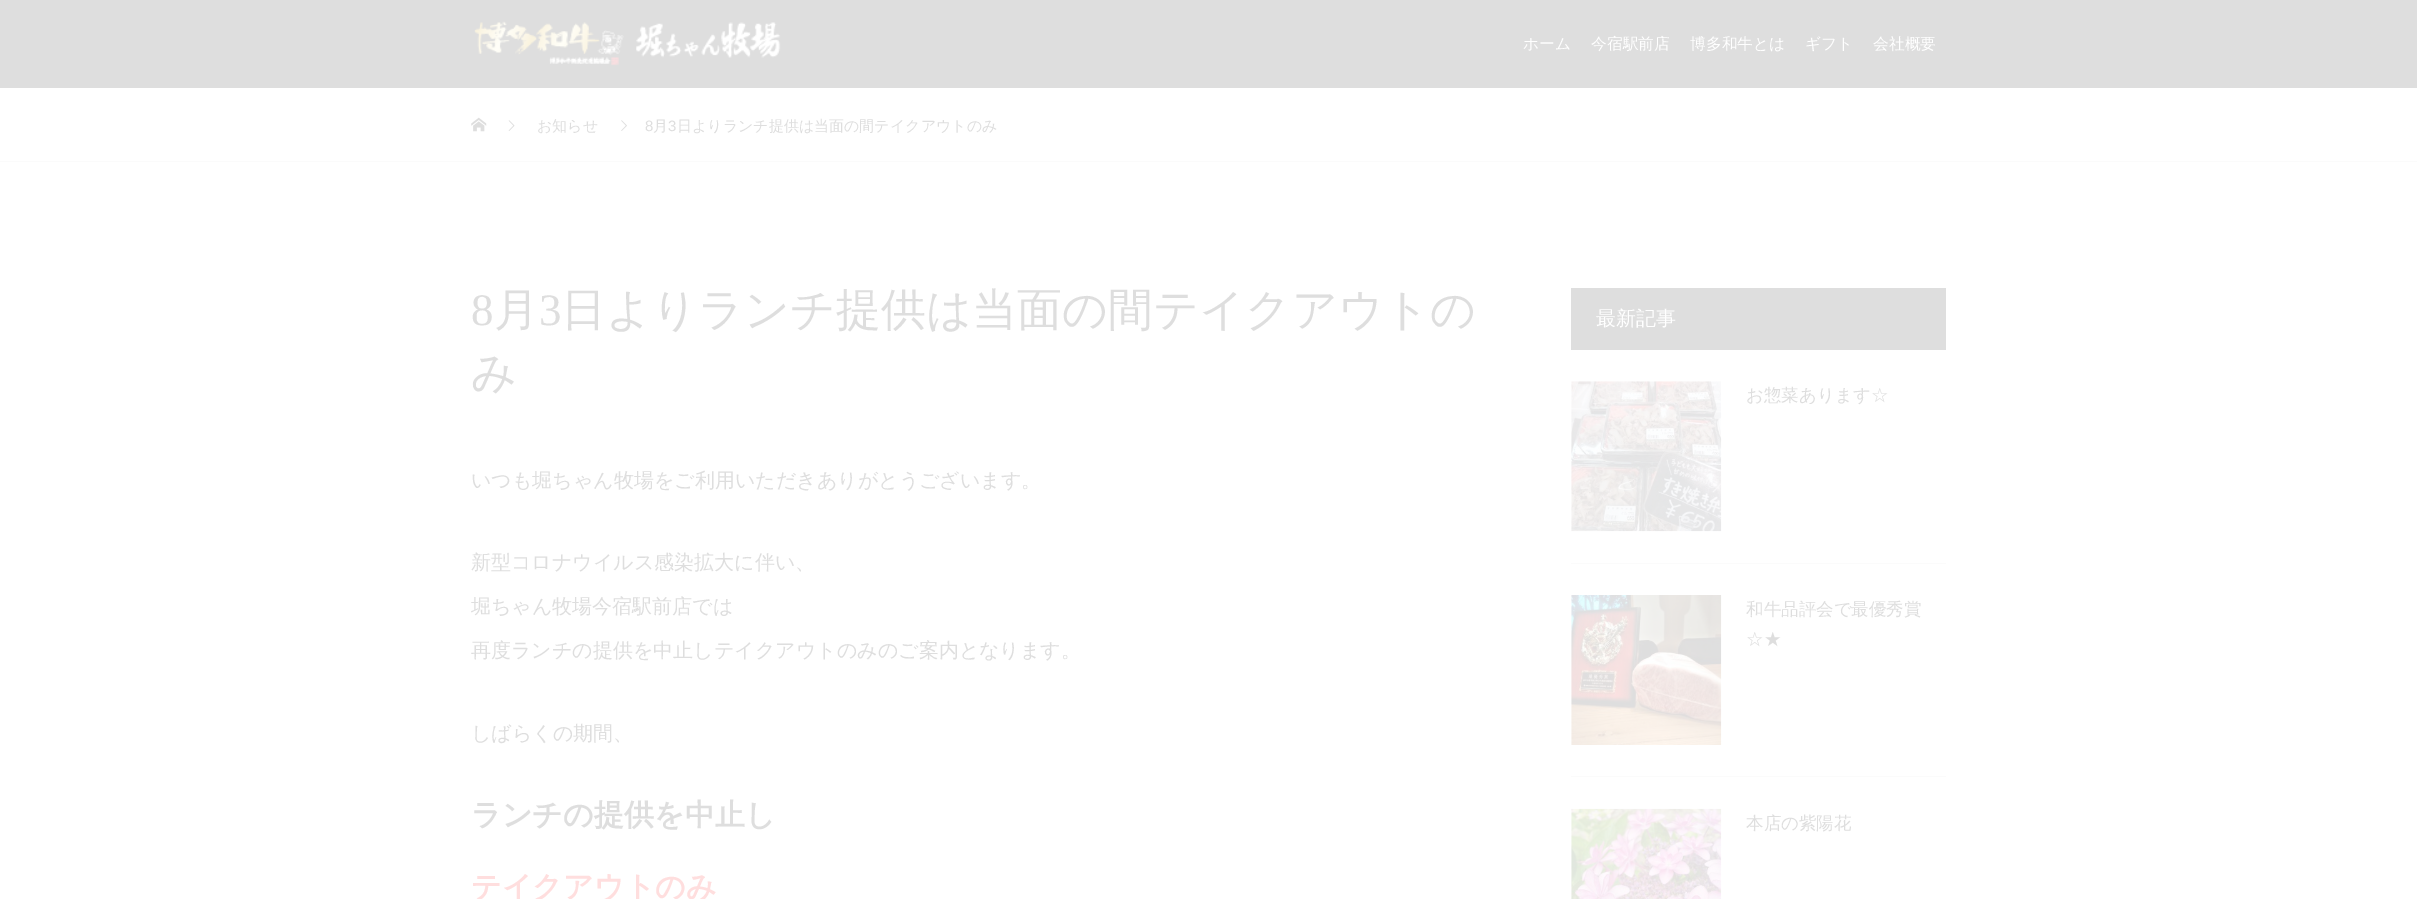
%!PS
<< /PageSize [2417 899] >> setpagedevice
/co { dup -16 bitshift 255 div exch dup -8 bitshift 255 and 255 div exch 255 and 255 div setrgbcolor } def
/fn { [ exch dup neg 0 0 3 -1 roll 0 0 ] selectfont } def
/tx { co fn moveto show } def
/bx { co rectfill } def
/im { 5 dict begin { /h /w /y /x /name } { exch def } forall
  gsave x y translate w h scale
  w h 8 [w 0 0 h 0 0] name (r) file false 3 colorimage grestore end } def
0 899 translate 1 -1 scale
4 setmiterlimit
0 0 2417 899 16#FFFFFF bx
0 0 2417 88 16#DEDEDE bx
(media/1.raw) 473 21 308 45 im
0 161 2417 1 16#FBFBFB bx
(media/2.raw) 471 117 16 15 im
(media/3.raw) 508 120 7 11 im
(media/4.raw) 621 120 6 11 im
1571 288 375 62 16#DEDEDE bx
1571 563 375 1 16#FBFBFB bx
(media/5.raw) 1571 381 151 151 im
1571 776 375 1 16#FBFBFB bx
(media/6.raw) 1571 595 151 150 im
(media/7.raw) 1571 808 151 91 im
(ホーム) 1523 49 /WenQuanYiZenHei-Medium 15.75 16#FFFFFF tx
(今宿駅前店) 1591 49 /WenQuanYiZenHei-Medium 15.75 16#FFFFFF tx
(博多和牛とは) 1690 49 /WenQuanYiZenHei-Medium 15.75 16#FFFFFF tx
(ギフト) 1805 49 /WenQuanYiZenHei-Medium 15.75 16#FFFFFF tx
(会社概要) 1873 49 /WenQuanYiZenHei-Medium 15.75 16#FFFFFF tx
(お知らせ) 537 131 /WenQuanYiZenHei-Medium 15 16#DEDEDE tx
(8) 645 131 /LiberationSans-Regular 15 16#DEDEDE tx
(月) 653 131 /WenQuanYiZenHei-Medium 15 16#DEDEDE tx
(3) 668 131 /LiberationSans-Regular 15 16#DEDEDE tx
(日よりランチ提供は当面の間テイクアウトのみ) 677 131 /WenQuanYiZenHei-Medium 15 16#DEDEDE tx
(8) 471 325 /LiberationSerif-Regular 45 16#DEDEDE tx
(月) 494 325 /WenQuanYiZenHei-Medium 45 16#DEDEDE tx
(3) 539 325 /LiberationSerif-Regular 45 16#DEDEDE tx
(日よりランチ提供は当面の間テイクアウトの) 561 325 /WenQuanYiZenHei-Medium 45 16#DEDEDE tx
(み) 471 388 /WenQuanYiZenHei-Medium 45 16#DEDEDE tx
(いつも堀ちゃん牧場をご利用いただきありがとうございます。) 471 487 /WenQuanYiZenHei-Medium 20 16#DEDEDE tx
(新型コロナウイルス感染拡大に伴い、) 471 569 /WenQuanYiZenHei-Medium 20 16#DEDEDE tx
(堀ちゃん牧場今宿駅前店では) 471 613 /WenQuanYiZenHei-Medium 20 16#DEDEDE tx
(再度ランチの提供を中止しテイクアウトのみのご案内となります。) 471 657 /WenQuanYiZenHei-Medium 20 16#DEDEDE tx
(しばらくの期間、) 471 740 /WenQuanYiZenHei-Medium 20 16#DEDEDE tx
(ランチの提供を中止し) 471 825 /WenQuanYiZenHei-Bold 30 16#DEDEDE tx
(テイクアウトのみ) 471 897 /WenQuanYiZenHei-Bold 30 16#FFDEDE tx
(最新記事) 1596 325 /WenQuanYiZenHei-Medium 20 16#FFFFFF tx
(お惣菜あります☆) 1746 401 /WenQuanYiZenHei-Medium 17.5 16#DEDEDE tx
(和牛品評会で最優秀賞) 1746 615 /WenQuanYiZenHei-Medium 17.5 16#DEDEDE tx
(☆★) 1746 645 /WenQuanYiZenHei-Medium 17.5 16#DEDEDE tx
(本店の紫陽花) 1746 829 /WenQuanYiZenHei-Medium 17.5 16#DEDEDE tx
showpage
